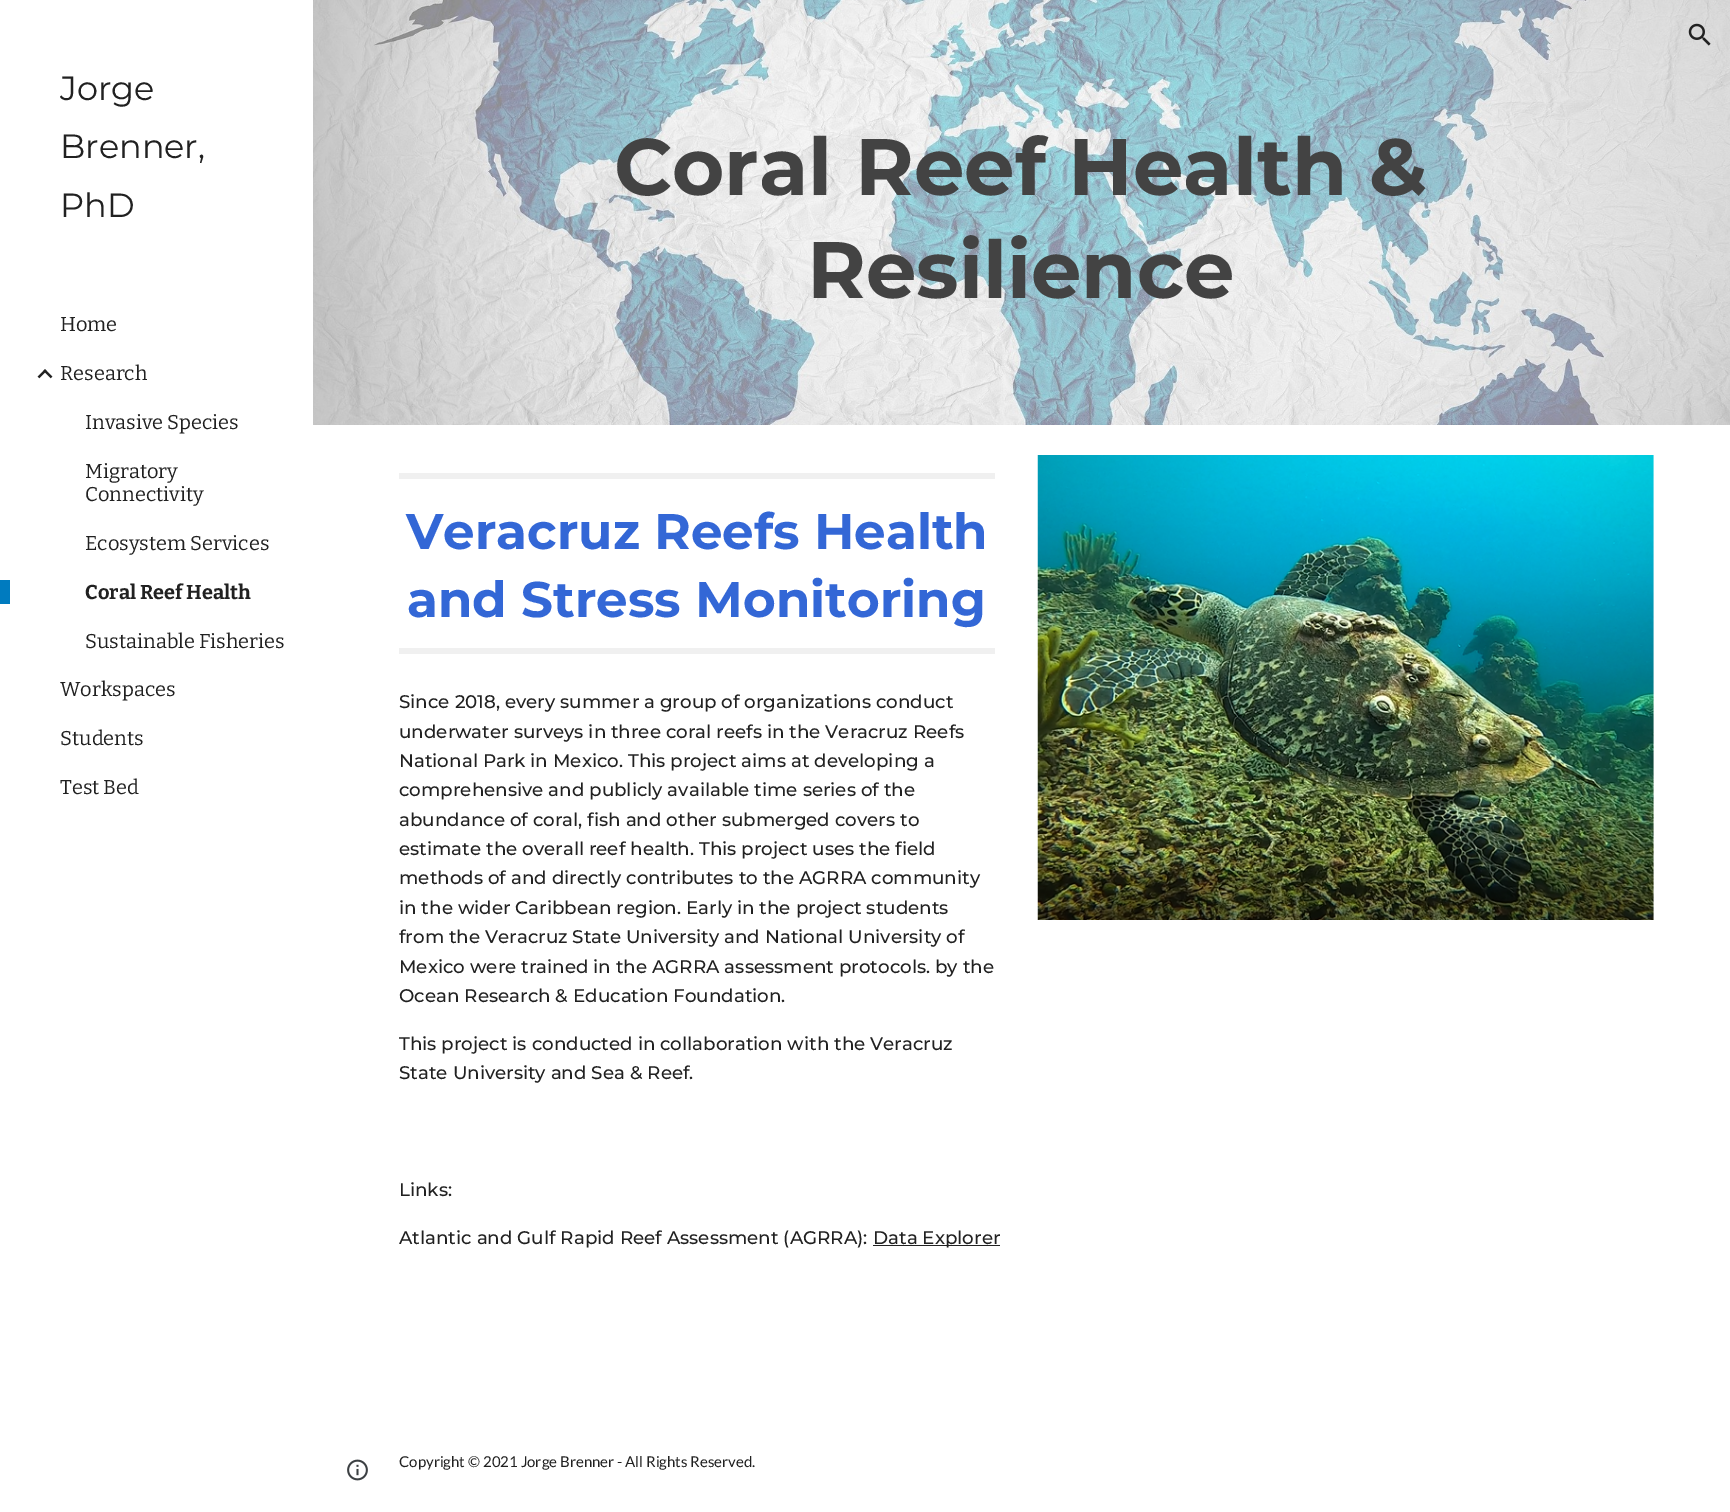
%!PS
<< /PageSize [1730 1512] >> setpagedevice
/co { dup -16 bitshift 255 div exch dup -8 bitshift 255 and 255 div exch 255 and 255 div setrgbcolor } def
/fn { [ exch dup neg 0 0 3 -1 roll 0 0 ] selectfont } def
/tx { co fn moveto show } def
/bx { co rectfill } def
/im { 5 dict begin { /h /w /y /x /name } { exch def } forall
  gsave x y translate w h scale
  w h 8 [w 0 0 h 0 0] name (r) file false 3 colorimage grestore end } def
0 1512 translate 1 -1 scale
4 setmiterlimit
0 0 1730 1512 16#FFFFFF bx
(media/3.raw) 313 0 1417 425 im
(media/1.raw) 1688 23 23 23 im
(media/2.raw) 37 369 16 10 im
0 580 10 24 16#007BBF bx
399 473 596 6 16#F0F0F0 bx
399 648 596 6 16#F0F0F0 bx
(media/4.raw) 1037 455 617 465 im
873 1245 127 1 16#212121 bx
(media/5.raw) 347 1459 21 22 im
(Jorge) 60 100 /Montserrat-Regular 33.5 16#212121 tx
(Brenner,) 60 158 /Montserrat-Regular 33.5 16#212121 tx
(PhD) 60 217 /Montserrat-Regular 33.5 16#212121 tx
(Home) 60 331 /Bitter-Regular 20 16#212121 tx
(Research) 60 380 /Bitter-Regular 20 16#212121 tx
(Invasive Species) 85 429 /Bitter-Regular 20 16#212121 tx
(Migratory) 85 478 /Bitter-Regular 20 16#212121 tx
(Connectivity) 85 501 /Bitter-Regular 20 16#212121 tx
(Ecosystem Services) 85 550 /Bitter-Regular 20 16#212121 tx
(Coral Reef Health) 85 599 /Bitter-Bold 20 16#212121 tx
(Sustainable Fisheries) 85 648 /Bitter-Regular 20 16#212121 tx
(Workspaces) 60 696 /Bitter-Regular 20 16#212121 tx
(Students) 60 745 /Bitter-Regular 20 16#212121 tx
(Test Bed) 60 794 /Bitter-Regular 20 16#212121 tx
(Coral Reef Health &) 614 195 /Montserrat-Bold 80 16#434343 tx
(Resilience) 807 298 /Montserrat-Bold 80 16#434343 tx
(Veracruz Reefs Health) 406 549 /Montserrat-Bold 50 16#3367D6 tx
(and Stress Monitoring) 407 617 /Montserrat-Bold 50 16#3367D6 tx
(Since 2018, every summer a group of organizations conduct) 399 708 /Montserrat-Medium 18.3 16#212121 tx
(underwater surveys in three coral reefs in the Veracruz Reefs) 399 738 /Montserrat-Medium 18.3 16#212121 tx
(National Park in Mexico. This project aims at developing a) 399 767 /Montserrat-Medium 18.3 16#212121 tx
(comprehensive and publicly available time series of the) 399 796 /Montserrat-Medium 18.3 16#212121 tx
(abundance of coral, fish and other submerged covers to) 399 826 /Montserrat-Medium 18.3 16#212121 tx
(estimate the overall reef health. This project uses the field) 399 855 /Montserrat-Medium 18.3 16#212121 tx
(methods of and directly contributes to the AGRRA community) 399 884 /Montserrat-Medium 18.3 16#212121 tx
(in the wider Caribbean region. Early in the project students) 399 914 /Montserrat-Medium 18.3 16#212121 tx
(from the Veracruz State University and National University of) 399 943 /Montserrat-Medium 18.3 16#212121 tx
(Mexico were trained in the AGRRA assessment protocols. by the) 399 973 /Montserrat-Medium 18.3 16#212121 tx
(Ocean Research & Education Foundation.) 399 1002 /Montserrat-Medium 18.3 16#212121 tx
(This project is conducted in collaboration with the Veracruz) 399 1050 /Montserrat-Medium 18.3 16#212121 tx
(State University and Sea & Reef.) 399 1079 /Montserrat-Medium 18.3 16#212121 tx
(Links:) 399 1196 /Montserrat-Medium 18.3 16#212121 tx
(Atlantic and Gulf Rapid Reef Assessment \(AGRRA\):) 399 1244 /Montserrat-Medium 18.3 16#212121 tx
(Data Explorer) 873 1244 /Montserrat-Medium 18.3 16#212121 tx
(Copyright © 2021 Jorge Brenner - All Rights Reserved.) 399 1467 /Lato-Regular 15 16#212121 tx
showpage
